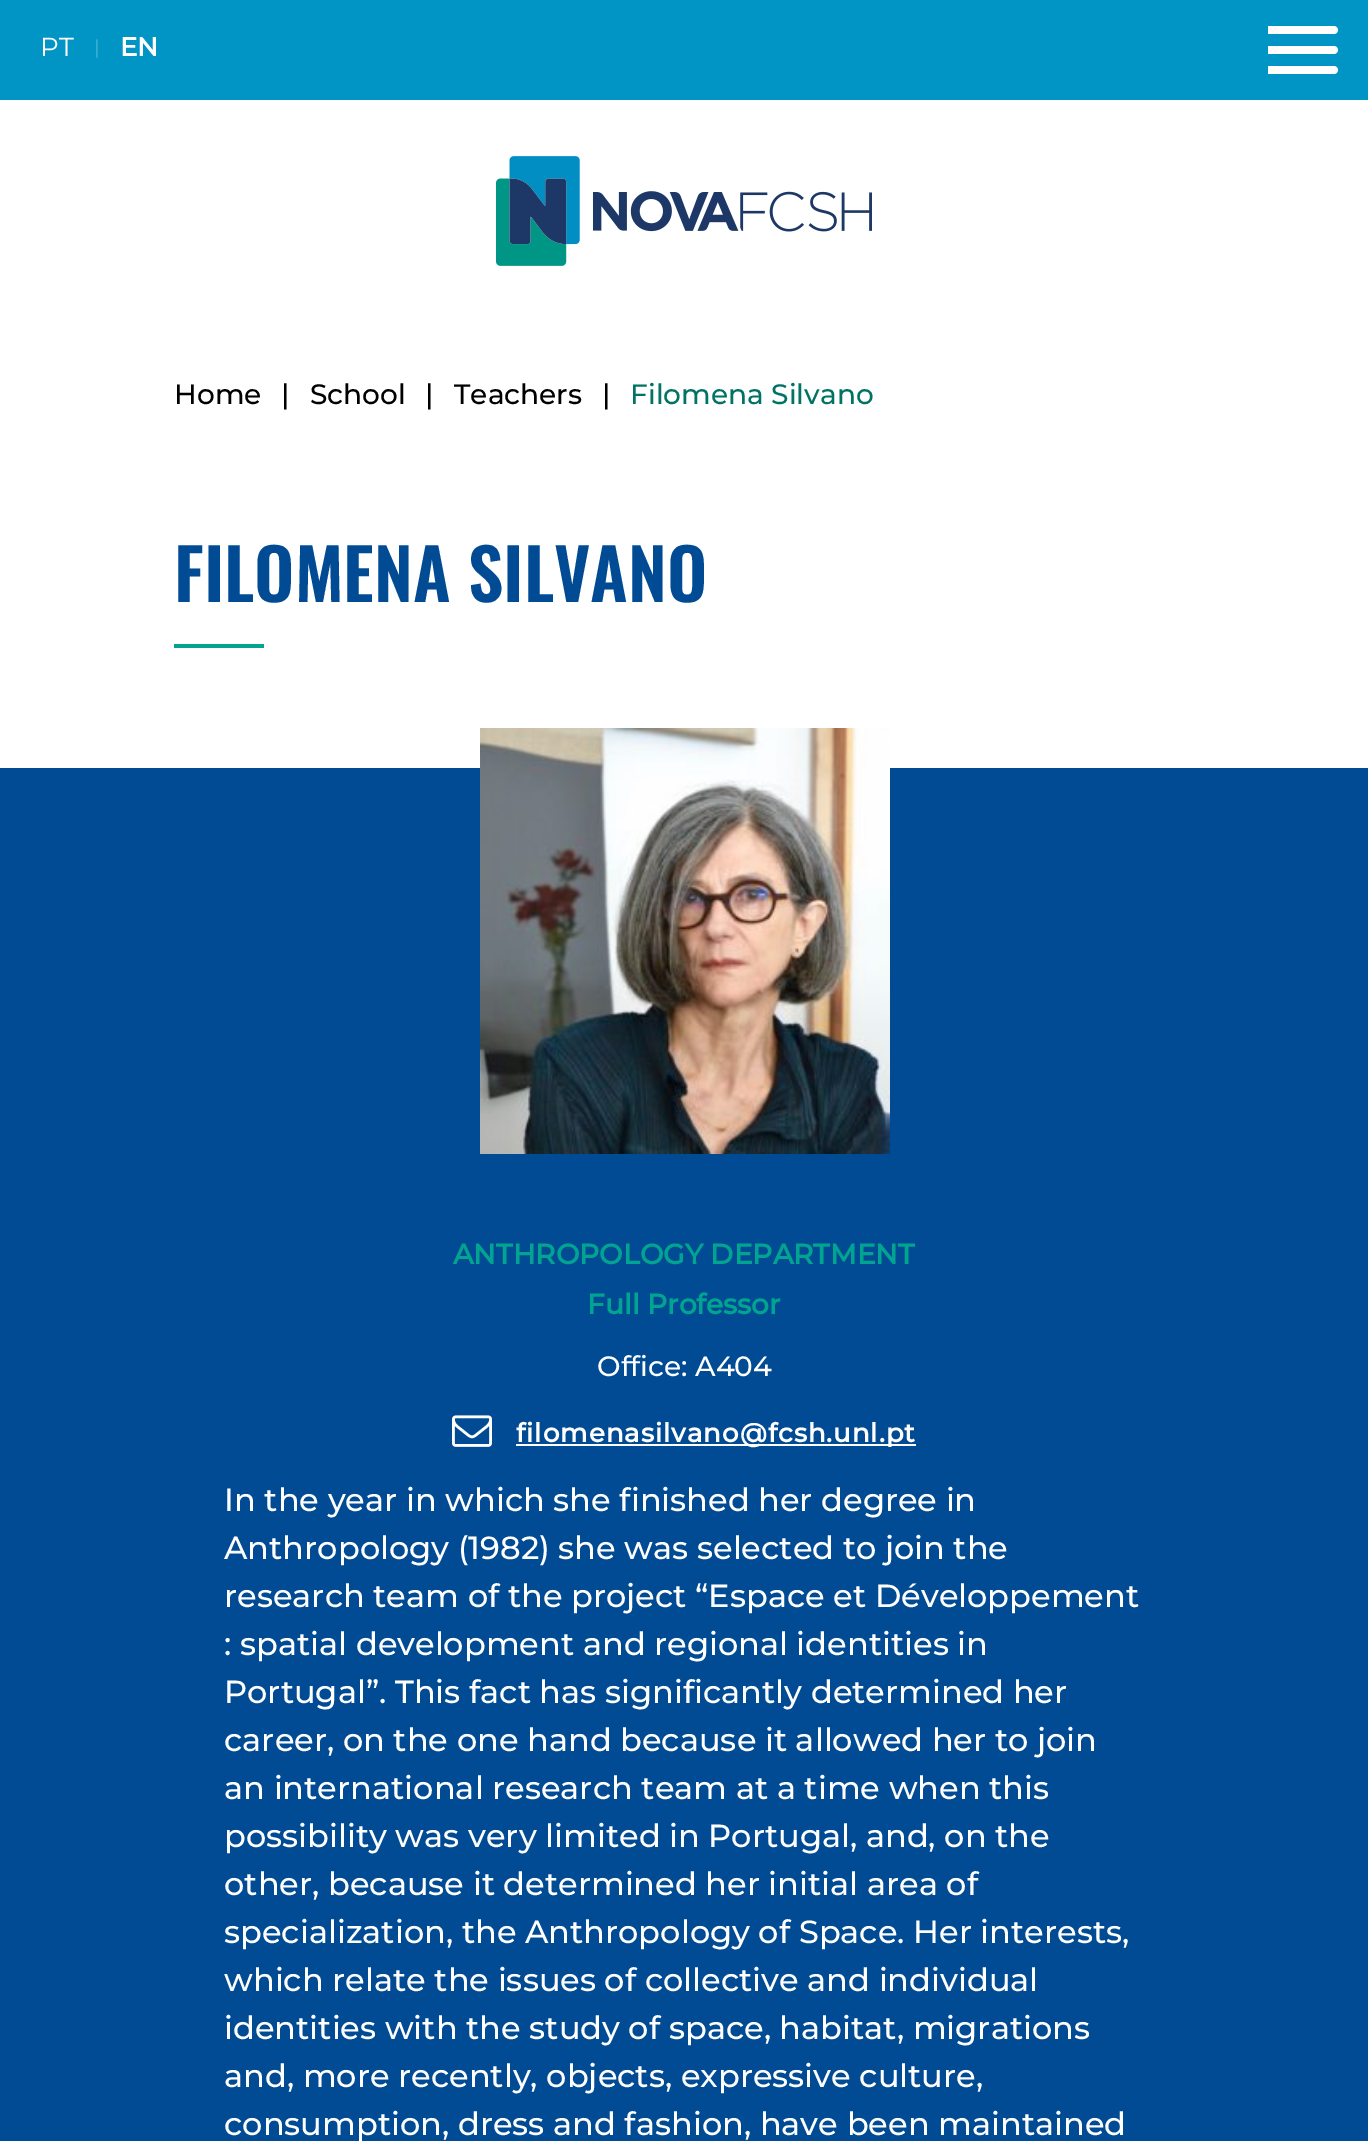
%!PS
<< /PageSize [1368 2141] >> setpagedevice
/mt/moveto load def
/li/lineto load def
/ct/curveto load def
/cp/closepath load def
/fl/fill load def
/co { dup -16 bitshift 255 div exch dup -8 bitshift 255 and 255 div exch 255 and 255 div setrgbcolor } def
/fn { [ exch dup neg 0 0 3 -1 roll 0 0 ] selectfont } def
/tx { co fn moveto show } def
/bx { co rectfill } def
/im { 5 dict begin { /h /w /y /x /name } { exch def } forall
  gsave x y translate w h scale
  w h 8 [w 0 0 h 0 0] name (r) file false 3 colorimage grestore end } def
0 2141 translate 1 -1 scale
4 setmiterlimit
0 0 1368 2141 16#FFFFFF bx
0 0 1368 100 16#0095C5 bx
16#FFFFFF co
1268 66 mt 1334 66 li 1336 66 1338 68 1338 70 ct 1338 72 1336 74 1334 74 ct 1268 74 li cp fl
1268 26 mt 1334 26 li 1336 26 1338 28 1338 30 ct 1338 32 1336 34 1334 34 ct 1268 34 li cp fl
1268 46 mt 1334 46 li 1336 46 1338 48 1338 50 ct 1338 52 1336 54 1334 54 ct 1268 54 li cp fl
(media/1.raw) 496 156 376 110 im
174 644 90 4 16#00A490 bx
0 768 1368 1373 16#004B93 bx
(media/2.raw) 480 728 410 426 im
(media/3.raw) 452 1415 40 32 im
516 1444 400 2 16#FFFFFF bx
(PT) 40 56 /Montserrat-Regular 26 16#FFFFFF tx
(|) 94 54 /Montserrat-Regular 20 16#4DB5D6 tx
(EN) 120 56 /Montserrat-Bold 26 16#FFFFFF tx
(Home) 174 404 /Montserrat-Medium 28 16#000000 tx
(|) 281 404 /Montserrat-Medium 28 16#000000 tx
(School) 310 404 /Montserrat-Medium 28 16#000000 tx
(|) 425 404 /Montserrat-Medium 28 16#000000 tx
(Teachers) 454 404 /Montserrat-Medium 28 16#000000 tx
(|) 602 404 /Montserrat-Medium 28 16#000000 tx
(Filomena Silvano) 630 404 /Montserrat-Medium 28 16#007365 tx
(FILOMENA SILVANO) 174 602 /Oswald-SemiBold 70 16#004B93 tx
(ANTHROPOLOGY DEPARTMENT) 453 1264 /Montserrat-Bold 28 16#00A490 tx
(Full Professor) 587 1314 /Montserrat-Bold 28 16#00A490 tx
(Office: A404) 597 1376 /Montserrat-Medium 28 16#FFFFFF tx
/Montserrat-Bold 26 fn
516 1442 mt 1 0 (filomenasilvano@fcsh.unl.pt) ashow
(In the year in which she finished her degree in) 224 1511 /Montserrat-Medium 32 16#FFFFFF tx
(Anthropology \(1982\) she was selected to join the) 224 1559 /Montserrat-Medium 32 16#FFFFFF tx
(research team of the project “Espace et Développement) 224 1607 /Montserrat-Medium 32 16#FFFFFF tx
(: spatial development and regional identities in) 224 1655 /Montserrat-Medium 32 16#FFFFFF tx
(Portugal”. This fact has significantly determined her) 224 1703 /Montserrat-Medium 32 16#FFFFFF tx
(career, on the one hand because it allowed her to join) 224 1751 /Montserrat-Medium 32 16#FFFFFF tx
(an international research team at a time when this) 224 1799 /Montserrat-Medium 32 16#FFFFFF tx
(possibility was very limited in Portugal, and, on the) 224 1847 /Montserrat-Medium 32 16#FFFFFF tx
(other, because it determined her initial area of) 224 1895 /Montserrat-Medium 32 16#FFFFFF tx
(specialization, the Anthropology of Space. Her interests,) 224 1943 /Montserrat-Medium 32 16#FFFFFF tx
(which relate the issues of collective and individual) 224 1991 /Montserrat-Medium 32 16#FFFFFF tx
(identities with the study of space, habitat, migrations) 224 2039 /Montserrat-Medium 32 16#FFFFFF tx
(and, more recently, objects, expressive culture,) 224 2087 /Montserrat-Medium 32 16#FFFFFF tx
(consumption, dress and fashion, have been maintained) 224 2135 /Montserrat-Medium 32 16#FFFFFF tx
showpage
